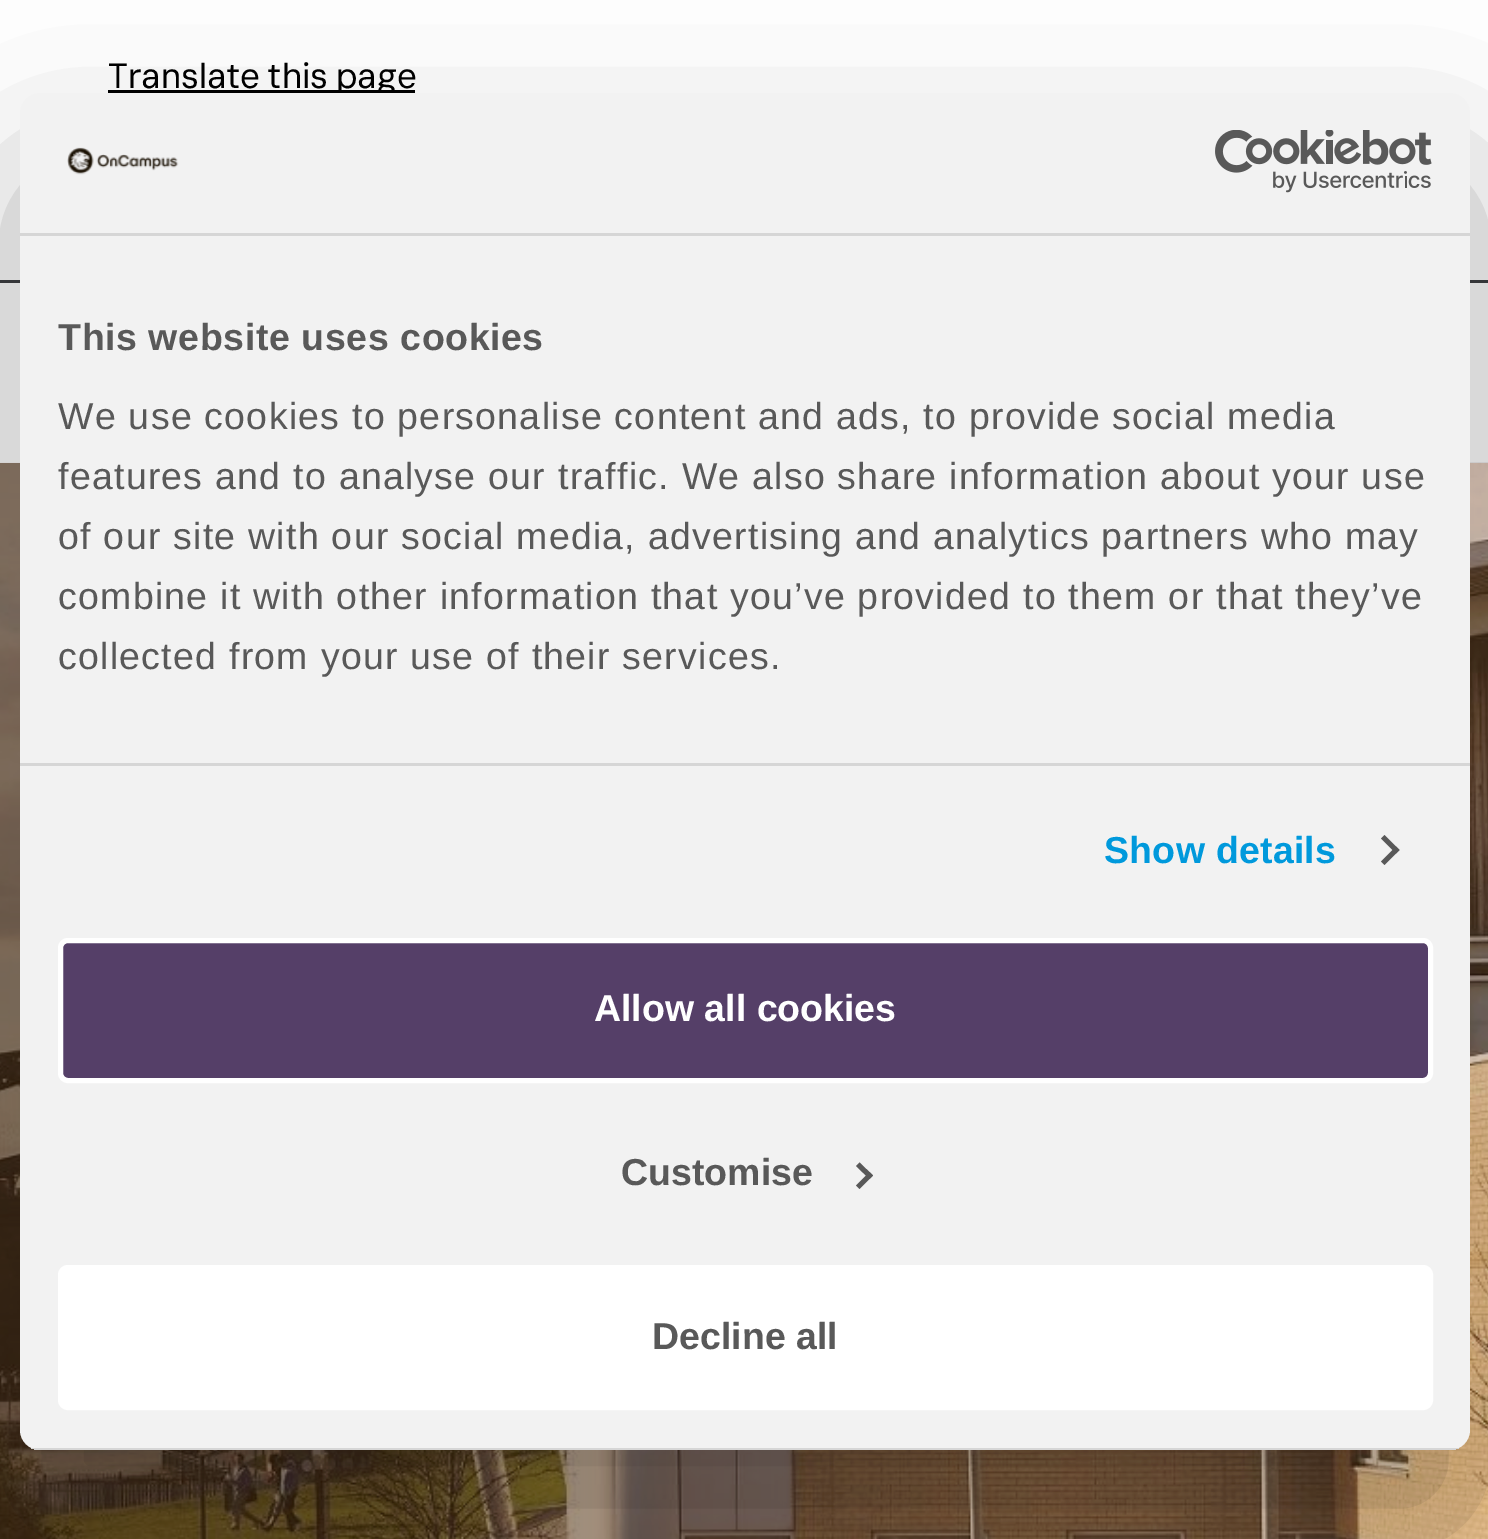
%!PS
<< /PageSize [1488 1539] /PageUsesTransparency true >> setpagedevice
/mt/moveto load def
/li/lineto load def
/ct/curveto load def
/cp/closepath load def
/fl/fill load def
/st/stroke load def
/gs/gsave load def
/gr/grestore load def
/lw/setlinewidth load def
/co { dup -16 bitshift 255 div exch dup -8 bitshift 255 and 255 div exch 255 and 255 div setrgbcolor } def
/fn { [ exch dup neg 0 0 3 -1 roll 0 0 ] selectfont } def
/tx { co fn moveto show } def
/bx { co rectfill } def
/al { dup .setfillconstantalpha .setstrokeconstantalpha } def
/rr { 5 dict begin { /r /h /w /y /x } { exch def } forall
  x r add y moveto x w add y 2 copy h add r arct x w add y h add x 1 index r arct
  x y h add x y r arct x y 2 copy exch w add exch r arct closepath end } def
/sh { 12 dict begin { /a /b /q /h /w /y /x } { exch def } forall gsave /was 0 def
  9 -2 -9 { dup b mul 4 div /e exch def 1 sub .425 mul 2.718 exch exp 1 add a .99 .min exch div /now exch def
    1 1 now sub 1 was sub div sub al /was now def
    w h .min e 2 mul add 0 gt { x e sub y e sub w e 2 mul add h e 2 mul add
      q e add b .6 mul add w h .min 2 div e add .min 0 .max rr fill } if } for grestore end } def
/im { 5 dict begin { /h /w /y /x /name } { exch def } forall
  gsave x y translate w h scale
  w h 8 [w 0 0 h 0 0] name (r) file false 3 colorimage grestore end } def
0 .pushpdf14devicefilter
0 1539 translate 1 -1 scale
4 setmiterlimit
0 0 1488 1539 16#FFFFFF bx
108 90 307 3 16#000000 bx
0 280 1488 3 16#3E3F44 bx
(media/1.raw) 0 462 1488 1077 im
gs
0 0 mt 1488 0 li 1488 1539 li 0 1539 li cp 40 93 mt 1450 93 li 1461 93 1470 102 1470 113 ct 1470 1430 li 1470 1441 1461 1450 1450 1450 ct 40 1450 li 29 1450 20 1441 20 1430 ct 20 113 li 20 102 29 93 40 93 ct cp eoclip newpath
16#000000 co
20 173 1450 1357 20 85 .3 sh
gr
/DMSans-Regular 35 fn
16#000000 co
108 88 mt -2 0 32 (Translate this page) widthshow
16#F2F2F2 co
20 93 1450 1357 20 rr fl
20 233 1450 3 16#D6D6D6 bx
(media/2.raw) 67 147 112 28 im
(media/3.raw) 1215 130 217 63 im
20 763 1450 3 16#D6D6D6 bx
/LiberationSans-Bold 37.5 fn
16#595959 co
58 350 mt .6 0 (This website uses cookies) ashow
/LiberationSans-Regular 37.5 fn
58 429 mt 1.25 0 (We use cookies to personalise content and ads, to provide social media) ashow
58 489 mt 1.25 0 (features and to analyse our traffic. We also share information about your use) ashow
58 549 mt 1.25 0 (of our site with our social media, advertising and analytics partners who may) ashow
58 609 mt 1.25 0 (combine it with other information that you’ve provided to them or that they’ve) ashow
58 669 mt 1.25 0 (collected from your use of their services.) ashow
/LiberationSans-Bold 37.5 fn
16#0099DC co
1104 863 mt .25 0 (Show details) ashow
16#595959 co
1384.5 835 mt 1399.5 850 li 1396 853.5 li 1381 838.5 li cp fl
1396 846.5 mt 1399.5 850 li 1384.5 865 li 1381 861.5 li cp fl
gs
20 93 1450 1357 20 rr clip newpath
31 1448 1428 2 16#D6D6D6 bx
gr
16#553F68 co
60.5 940.5 1370 140 7.5 rr gs fl gr
16#FFFFFF co
5 lw
st
(Allow all cookies) 594 1021 /LiberationSans-Bold 37.5 16#FFFFFF tx
(Customise) 621 1185 /LiberationSans-Bold 37.5 16#595959 tx
859.5 1162.5 mt 873 1175.5 li 869.5 1179 li 856 1166 li cp fl
869.5 1172 mt 873 1175.5 li 859.5 1189 li 856 1185.5 li cp fl
16#FFFFFF co
60.5 1267.5 1370 140 7.5 rr gs fl gr
st
(Decline all) 652 1349 /LiberationSans-Bold 37.5 16#595959 tx
.poppdf14devicefilter showpage
